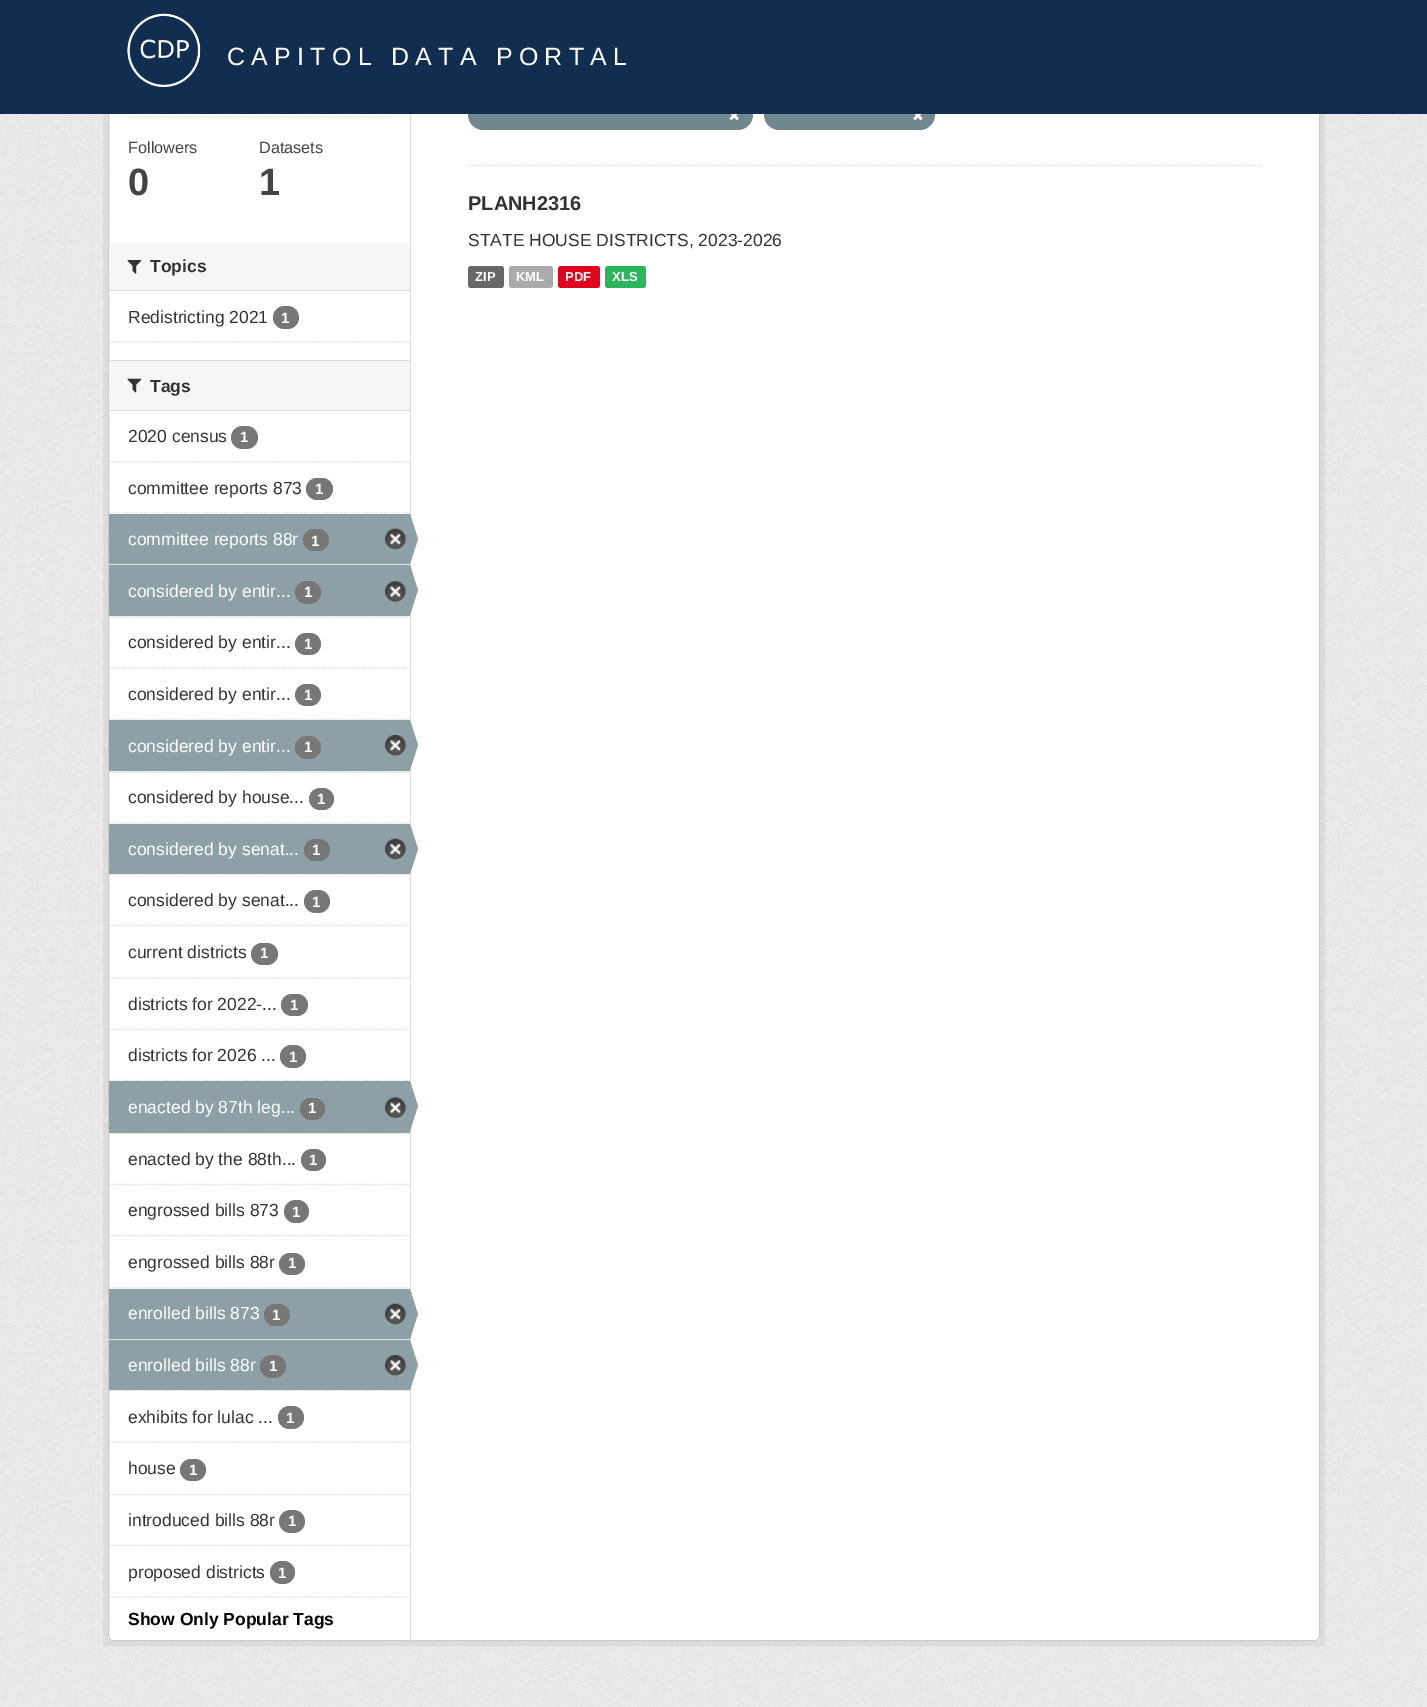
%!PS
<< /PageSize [1427 1707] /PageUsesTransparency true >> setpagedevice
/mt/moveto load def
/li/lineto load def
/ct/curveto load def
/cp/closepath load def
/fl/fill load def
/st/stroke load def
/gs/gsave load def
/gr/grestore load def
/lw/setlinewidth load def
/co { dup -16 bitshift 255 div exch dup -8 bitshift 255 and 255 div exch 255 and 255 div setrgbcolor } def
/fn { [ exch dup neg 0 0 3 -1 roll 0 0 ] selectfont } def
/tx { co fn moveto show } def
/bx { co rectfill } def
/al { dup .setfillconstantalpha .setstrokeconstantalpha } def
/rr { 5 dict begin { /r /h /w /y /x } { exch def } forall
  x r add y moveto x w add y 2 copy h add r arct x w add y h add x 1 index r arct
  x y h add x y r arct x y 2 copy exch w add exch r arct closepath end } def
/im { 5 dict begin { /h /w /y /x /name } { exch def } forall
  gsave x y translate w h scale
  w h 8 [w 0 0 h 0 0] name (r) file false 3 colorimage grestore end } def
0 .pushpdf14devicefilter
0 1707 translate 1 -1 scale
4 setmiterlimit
0 0 1427 1707 16#EEEEEE bx
(media/2.raw) 0 114 1427 1552 im
0.05 al
16#000000 co
5 lw
105.5 -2.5 1217 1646 rectstroke
1 al
16#FFFFFF co
108.5 -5.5 1211 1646 4.5 rr gs fl gr
16#CCCCCC co
1 lw
st
16#6F8890 co
468 99 285 31 15.5 rr fl
764 99 171 31 15.5 rr fl
0 0 1427 114 16#112E51 bx
(media/1.raw) 127 13 74 74 im
16#DDDDDD co
1.2 lw
[1.25 1.25] 0 setdash
127.5 117 mt 391 117 li st
16#F6F6F6 co
113 243 mt 410 243 li 410 291 li 109 291 li 109 247 li 109 245 111 243 113 243 ct cp fl
109 290 301 1 16#DDDDDD bx
(media/3.raw) 127 260 15 14 im
16#777777 co
273 306 26 23 11.5 rr fl
16#DDDDDD co
109 342 mt 410 342 li st
109 361 301 49 16#F6F6F6 bx
109 360 301 1 16#DDDDDD bx
109 410 301 1 16#DDDDDD bx
(media/4.raw) 127 378 15 15 im
109 462 mt 410 462 li st
16#777777 co
231 426 27 23 11.5 rr fl
16#DDDDDD co
109 513 mt 410 513 li st
16#777777 co
306 478 27 22 11 rr fl
110 564 299 1 16#F6F6F6 bx
16#DDDDDD co
109 564.5 mt 410 564.5 li st
109 514 301 50 16#8CA0A6 bx
16#777777 co
303 529 26 22 11 rr fl
(media/5.raw) 385 528 22 22 im
410 114 1 1526 16#DDDDDD bx
16#8CA0A6 co
410 564 mt 410 514 li 418 539 li cp fl
109 616 301 2 16#F6F6F6 bx
16#DDDDDD co
109 617 mt 410 617 li st
109 565 301 51 16#8CA0A6 bx
16#777777 co
295 581 26 23 11.5 rr fl
(media/6.raw) 385 581 22 22 im
16#8CA0A6 co
410 615 mt 410 565 li 418 590 li cp fl
16#DDDDDD co
109 668 mt 410 668 li st
16#777777 co
295 633 26 22 11 rr fl
16#DDDDDD co
109 719.5 mt 410 719.5 li st
16#777777 co
295 684 26 22 11 rr fl
109 771 301 2 16#F6F6F6 bx
16#DDDDDD co
109 772 mt 410 772 li st
109 720 301 51 16#8CA0A6 bx
16#777777 co
295 736 26 23 11.5 rr fl
(media/7.raw) 385 735 22 22 im
16#8CA0A6 co
410 770 mt 410 720 li 418 745 li cp fl
16#DDDDDD co
109 823 mt 410 823 li st
16#777777 co
309 788 25 22 11 rr fl
110 874 299 1 16#F6F6F6 bx
16#DDDDDD co
109 874.5 mt 410 874.5 li st
109 824 301 50 16#8CA0A6 bx
16#777777 co
304 839 26 22 11 rr fl
(media/5.raw) 385 838 22 22 im
16#8CA0A6 co
410 874 mt 410 824 li 418 849 li cp fl
16#DDDDDD co
109 925.5 mt 410 925.5 li st
16#777777 co
304 890 26 23 11.5 rr fl
16#DDDDDD co
109 978 mt 410 978 li st
16#777777 co
251 943 27 22 11 rr fl
16#DDDDDD co
109 1029.5 mt 410 1029.5 li st
16#777777 co
281 994 27 22 11 rr fl
16#DDDDDD co
109 1080.5 mt 410 1080.5 li st
16#777777 co
280 1045 26 23 11.5 rr fl
109 1133 301 1 16#F6F6F6 bx
16#DDDDDD co
109 1133 mt 410 1133 li st
109 1081 301 52 16#8CA0A6 bx
16#777777 co
300 1098 25 22 11 rr fl
(media/8.raw) 385 1097 22 22 im
16#8CA0A6 co
410 1131 mt 410 1081 li 418 1106 li cp fl
16#DDDDDD co
109 1184.5 mt 410 1184.5 li st
16#777777 co
301 1149 25 22 11 rr fl
16#DDDDDD co
109 1235.5 mt 410 1235.5 li st
16#777777 co
284 1200 25 23 11.5 rr fl
16#DDDDDD co
109 1288 mt 410 1288 li st
16#777777 co
279 1253 26 22 11 rr fl
110 1339 299 1 16#F6F6F6 bx
16#DDDDDD co
109 1339.5 mt 410 1339.5 li st
109 1289 301 50 16#8CA0A6 bx
16#777777 co
264 1304 26 22 11 rr fl
(media/5.raw) 385 1303 22 22 im
16#8CA0A6 co
410 1339 mt 410 1289 li 418 1314 li cp fl
110 1390 299 1 16#F6F6F6 bx
16#DDDDDD co
109 1390.5 mt 410 1390.5 li st
109 1340 301 50 16#8CA0A6 bx
16#777777 co
260 1355 26 23 11.5 rr fl
(media/7.raw) 385 1355 22 22 im
16#8CA0A6 co
410 1390 mt 410 1340 li 418 1365 li cp fl
16#DDDDDD co
109 1442 mt 410 1442 li st
16#777777 co
278 1406 26 23 11.5 rr fl
16#DDDDDD co
109 1494.5 mt 410 1494.5 li st
16#777777 co
180 1459 26 22 11 rr fl
16#DDDDDD co
109 1545.5 mt 410 1545.5 li st
16#777777 co
279 1510 26 23 11.5 rr fl
270 1561 25 23 11.5 rr fl
16#DDDDDD co
109 1597 mt 410 1597 li st
467.5 165.5 mt 1262.5 165.5 li st
(media/9.raw) 729 114 10 7 im
(media/10.raw) 913 114 10 7 im
16#686868 co
468 266 36 22 3 rr fl
16#AAAAAA co
509 266 44 22 3 rr fl
16#E0051E co
558 266 42 22 3 rr fl
16#2DB55D co
605 266 41 22 3 rr fl
(media/11.raw) 0 1666 1427 41 im
/LiberationSans-Regular 25 fn
16#FFFFFF co
227 65 mt 6.25 0 (CAPITOL DATA PORTAL) ashow
(Followers) 128 153 /LiberationSans-Regular 16.25 16#444444 tx
(0) 128 195 /LiberationSans-Bold 38 16#444444 tx
(Datasets) 259 153 /LiberationSans-Regular 16.25 16#444444 tx
(1) 259 195 /LiberationSans-Bold 38 16#444444 tx
(Topics) 150 272 /LiberationSans-Bold 17.5 16#333333 tx
(Redistricting 2021) 128 323 /LiberationSans-Regular 17.5 16#333333 tx
(1) 281 323 /LiberationSans-Bold 15 16#FFFFFF tx
(Tags) 150 392 /LiberationSans-Bold 17.5 16#333333 tx
(2020 census) 128 442 /LiberationSans-Regular 17.5 16#333333 tx
(1) 240 442 /LiberationSans-Bold 15 16#FFFFFF tx
(committee reports 873) 128 494 /LiberationSans-Regular 17.5 16#333333 tx
(1) 315 494 /LiberationSans-Bold 15 16#FFFFFF tx
(committee reports 88r) 128 545 /LiberationSans-Regular 17.5 16#FFFFFF tx
(1) 311 546 /LiberationSans-Bold 15 16#FFFFFF tx
(considered by entir...) 128 597 /LiberationSans-Regular 17.5 16#FFFFFF tx
(1) 304 597 /LiberationSans-Bold 15 16#FFFFFF tx
(considered by entir...) 128 648 /LiberationSans-Regular 17.5 16#333333 tx
(1) 304 649 /LiberationSans-Bold 15 16#FFFFFF tx
(considered by entir...) 128 700 /LiberationSans-Regular 17.5 16#333333 tx
(1) 304 700 /LiberationSans-Bold 15 16#FFFFFF tx
(considered by entir...) 128 752 /LiberationSans-Regular 17.5 16#FFFFFF tx
(1) 304 752 /LiberationSans-Bold 15 16#FFFFFF tx
(considered by house...) 128 803 /LiberationSans-Regular 17.5 16#333333 tx
(1) 317 804 /LiberationSans-Bold 15 16#FFFFFF tx
(considered by senat...) 128 855 /LiberationSans-Regular 17.5 16#FFFFFF tx
(1) 312 855 /LiberationSans-Bold 15 16#FFFFFF tx
(considered by senat...) 128 906 /LiberationSans-Regular 17.5 16#333333 tx
(1) 312 907 /LiberationSans-Bold 15 16#FFFFFF tx
(current districts) 128 958 /LiberationSans-Regular 17.5 16#333333 tx
(1) 260 958 /LiberationSans-Bold 15 16#FFFFFF tx
(districts for 2022-...) 128 1010 /LiberationSans-Regular 17.5 16#333333 tx
(1) 290 1010 /LiberationSans-Bold 15 16#FFFFFF tx
(districts for 2026 ...) 128 1061 /LiberationSans-Regular 17.5 16#333333 tx
(1) 289 1062 /LiberationSans-Bold 15 16#FFFFFF tx
(enacted by 87th leg...) 128 1113 /LiberationSans-Regular 17.5 16#FFFFFF tx
(1) 308 1113 /LiberationSans-Bold 15 16#FFFFFF tx
(enacted by the 88th...) 128 1165 /LiberationSans-Regular 17.5 16#333333 tx
(1) 309 1165 /LiberationSans-Bold 15 16#FFFFFF tx
(engrossed bills 873) 128 1216 /LiberationSans-Regular 17.5 16#333333 tx
(1) 292 1217 /LiberationSans-Bold 15 16#FFFFFF tx
(engrossed bills 88r) 128 1268 /LiberationSans-Regular 17.5 16#333333 tx
(1) 288 1268 /LiberationSans-Bold 15 16#FFFFFF tx
(enrolled bills 873) 128 1319 /LiberationSans-Regular 17.5 16#FFFFFF tx
(1) 272 1320 /LiberationSans-Bold 15 16#FFFFFF tx
(enrolled bills 88r) 128 1371 /LiberationSans-Regular 17.5 16#FFFFFF tx
(1) 269 1371 /LiberationSans-Bold 15 16#FFFFFF tx
(exhibits for lulac ...) 128 1423 /LiberationSans-Regular 17.5 16#333333 tx
(1) 286 1423 /LiberationSans-Bold 15 16#FFFFFF tx
(house) 128 1474 /LiberationSans-Regular 17.5 16#333333 tx
(1) 189 1475 /LiberationSans-Bold 15 16#FFFFFF tx
(introduced bills 88r) 128 1526 /LiberationSans-Regular 17.5 16#333333 tx
(1) 288 1526 /LiberationSans-Bold 15 16#FFFFFF tx
(proposed districts) 128 1578 /LiberationSans-Regular 17.5 16#333333 tx
(1) 278 1578 /LiberationSans-Bold 15 16#FFFFFF tx
(Show Only Popular Tags) 128 1625 /LiberationSans-Bold 17.5 16#000000 tx
(PLANH2316) 468 210 /LiberationSans-Bold 20 16#333333 tx
(STATE HOUSE DISTRICTS, 2023-2026) 468 246 /LiberationSans-Regular 17.5 16#333333 tx
(ZIP) 475 281 /LiberationSans-Bold 13 16#FFFFFF tx
(KML) 516 281 /LiberationSans-Bold 13 16#FFFFFF tx
(PDF) 565 281 /LiberationSans-Bold 13 16#FFFFFF tx
(XLS) 612 281 /LiberationSans-Bold 13 16#FFFFFF tx
.poppdf14devicefilter showpage
